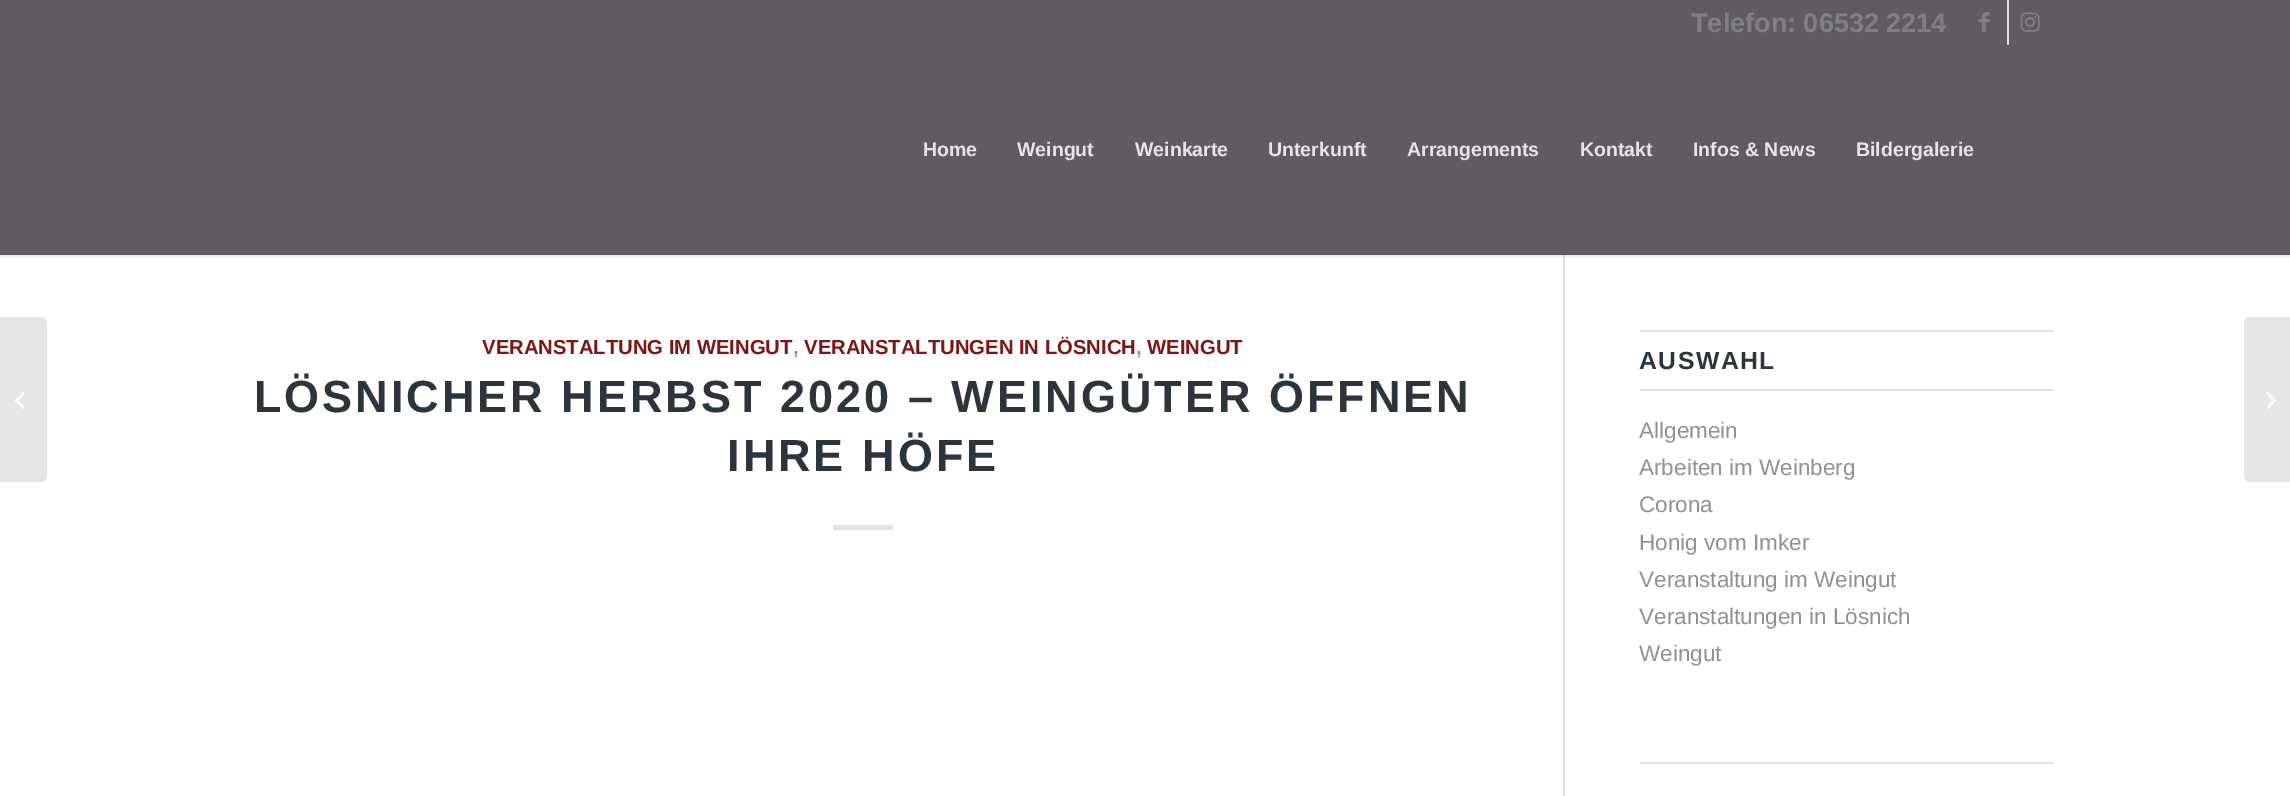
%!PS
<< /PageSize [2290 796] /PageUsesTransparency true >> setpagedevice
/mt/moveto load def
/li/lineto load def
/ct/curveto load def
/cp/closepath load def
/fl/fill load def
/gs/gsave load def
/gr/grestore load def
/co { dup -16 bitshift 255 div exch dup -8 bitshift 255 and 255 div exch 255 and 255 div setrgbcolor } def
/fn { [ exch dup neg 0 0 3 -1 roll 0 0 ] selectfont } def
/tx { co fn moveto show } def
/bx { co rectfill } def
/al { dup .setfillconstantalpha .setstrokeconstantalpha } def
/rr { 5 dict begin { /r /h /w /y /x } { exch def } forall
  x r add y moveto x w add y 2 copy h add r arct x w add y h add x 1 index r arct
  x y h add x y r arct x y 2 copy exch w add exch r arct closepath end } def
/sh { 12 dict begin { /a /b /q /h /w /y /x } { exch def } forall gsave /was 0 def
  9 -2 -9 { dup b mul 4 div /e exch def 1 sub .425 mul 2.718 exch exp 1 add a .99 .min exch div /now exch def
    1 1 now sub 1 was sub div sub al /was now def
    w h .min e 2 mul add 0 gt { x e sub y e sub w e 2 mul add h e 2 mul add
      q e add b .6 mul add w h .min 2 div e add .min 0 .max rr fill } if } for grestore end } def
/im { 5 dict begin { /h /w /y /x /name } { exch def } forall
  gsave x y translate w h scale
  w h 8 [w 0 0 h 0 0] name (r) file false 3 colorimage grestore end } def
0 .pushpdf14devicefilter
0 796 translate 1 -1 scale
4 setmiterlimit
0 0 2290 796 16#5F5B61 bx
0 255 2290 541 16#FFFFFF bx
1563 255 2 541 16#E1E1E1 bx
gs
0 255 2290 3 rectclip
16#000000 co
-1 -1 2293 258 0 1.5 .1 sh
gr
2007 0 2 45 16#E1E1E1 bx
(media/1.raw) 1978 12 12 21 im
(media/2.raw) 2020 12 20 20 im
16#E6E6E6 co
0 317 mt 41 317 li 44.5 317 47 319.5 47 323 ct 47 476 li 47 479.5 44.5 482 41 482 ct 0 482 li cp fl
(media/3.raw) 15 392 9 17 im
833 525 60 5 16#E1E1E1 bx
1640 330 414 2 16#E1E1E1 bx
1640 389 414 2 16#E1E1E1 bx
1640 762 414 2 16#E1E1E1 bx
16#E6E6E6 co
2250 317 mt 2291 317 li 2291 482 li 2250 482 li 2246.5 482 2244 479.5 2244 476 ct 2244 323 li 2244 319.5 2246.5 317 2250 317 ct cp fl
(media/4.raw) 2267 392 9 17 im
(Telefon: 06532 2214) 1691 32 /LiberationSans-Bold 27 16#808080 tx
(Home) 923 156 /LiberationSans-Bold 19.5 16#E6E6E6 tx
(Weingut) 1017 156 /LiberationSans-Bold 19.5 16#E6E6E6 tx
(Weinkarte) 1135 156 /LiberationSans-Bold 19.5 16#E6E6E6 tx
(Unterkunft) 1268 156 /LiberationSans-Bold 19.5 16#E6E6E6 tx
(Arrangements) 1407 156 /LiberationSans-Bold 19.5 16#E6E6E6 tx
(Kontakt) 1580 156 /LiberationSans-Bold 19.5 16#E6E6E6 tx
(Infos & News) 1693 156 /LiberationSans-Bold 19.5 16#E6E6E6 tx
(Bildergalerie) 1856 156 /LiberationSans-Bold 19.5 16#E6E6E6 tx
(VERANSTALTUNG IM WEINGUT) 482 354 /LiberationSans-Bold 20.25 16#7E1518 tx
(,) 793 354 /LiberationSans-Bold 20.25 16#919191 tx
(VERANSTALTUNGEN IN LÖSNICH) 804 354 /LiberationSans-Bold 20.25 16#7E1518 tx
(,) 1136 354 /LiberationSans-Bold 20.25 16#919191 tx
(WEINGUT) 1147 354 /LiberationSans-Bold 20.25 16#7E1518 tx
/LiberationSans-Bold 45 fn
16#2C353D co
254 412 mt 3 0 (LÖSNICHER HERBST 2020 – WEINGÜTER ÖFFNEN) ashow
727 471 mt 3 0 (IHRE HÖFE) ashow
/LiberationSans-Bold 24.75 fn
1639 369 mt 1.5 0 (AUSWAHL) ashow
(Allgemein) 1639 438 /LiberationSans-Regular 22.5 16#919191 tx
(Arbeiten im Weinberg) 1639 475 /LiberationSans-Regular 22.5 16#919191 tx
(Corona) 1639 512 /LiberationSans-Regular 22.5 16#919191 tx
(Honig vom Imker) 1639 550 /LiberationSans-Regular 22.5 16#919191 tx
(Veranstaltung im Weingut) 1639 587 /LiberationSans-Regular 22.5 16#919191 tx
(Veranstaltungen in Lösnich) 1639 624 /LiberationSans-Regular 22.5 16#919191 tx
(Weingut) 1639 661 /LiberationSans-Regular 22.5 16#919191 tx
.poppdf14devicefilter showpage
